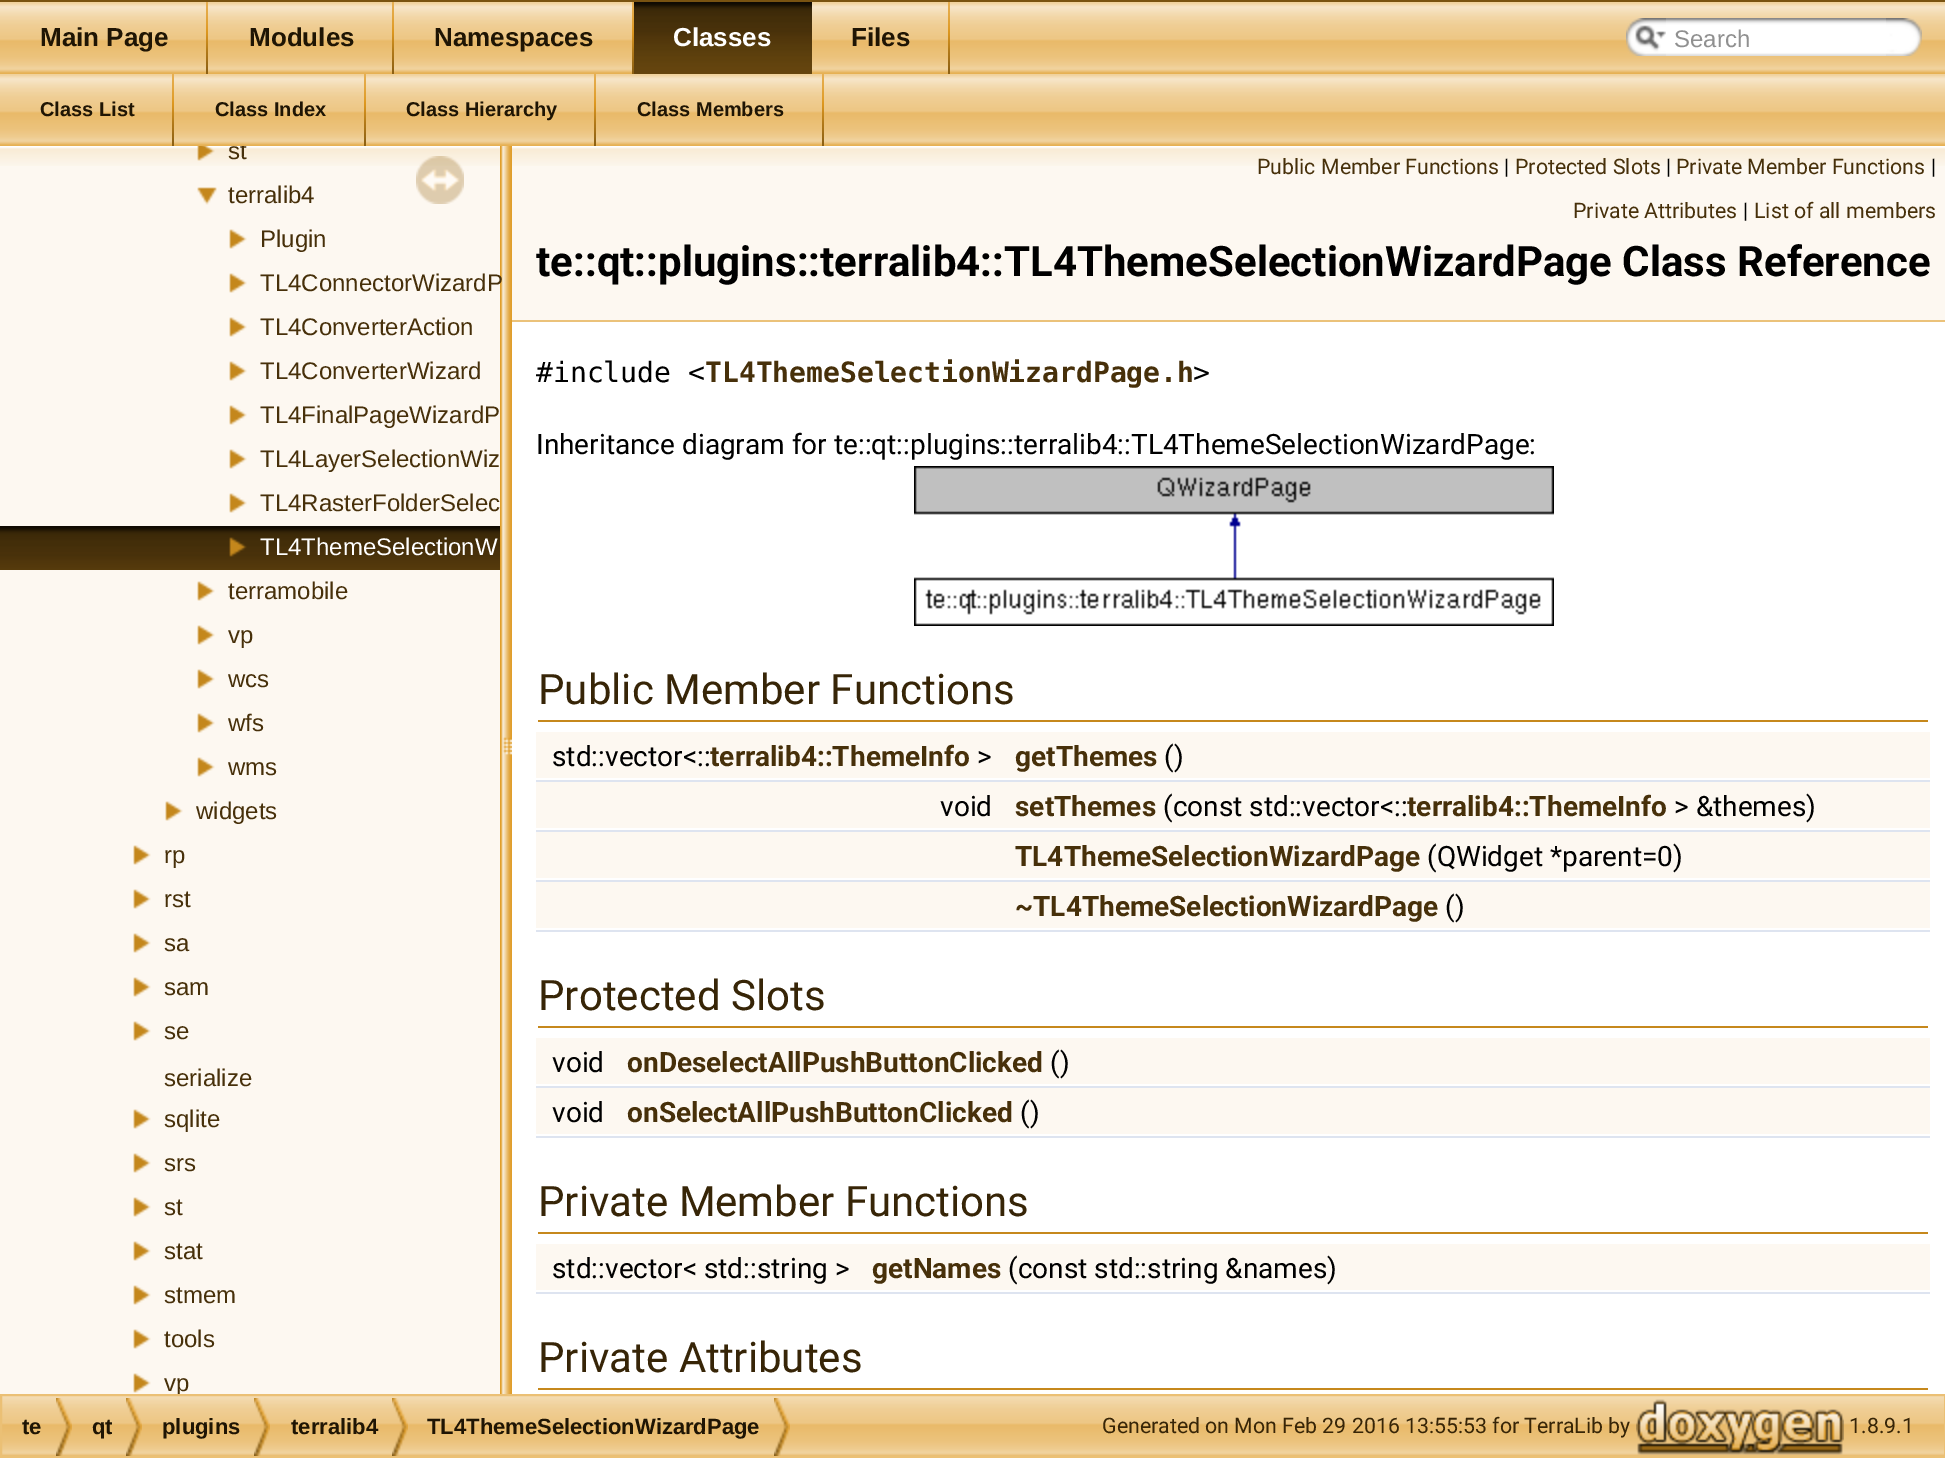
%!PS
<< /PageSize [1945 1458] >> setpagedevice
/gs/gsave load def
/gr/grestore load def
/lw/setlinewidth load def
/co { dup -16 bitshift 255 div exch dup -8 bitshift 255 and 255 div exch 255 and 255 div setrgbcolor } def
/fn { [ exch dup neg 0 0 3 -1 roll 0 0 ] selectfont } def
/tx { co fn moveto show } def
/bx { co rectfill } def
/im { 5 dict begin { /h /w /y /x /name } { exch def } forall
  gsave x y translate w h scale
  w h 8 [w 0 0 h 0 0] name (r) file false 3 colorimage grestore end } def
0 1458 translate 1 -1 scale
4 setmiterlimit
0 0 1945 1458 16#FFFFFF bx
0 0 1945 2 16#795311 bx
(media/1.raw) 0 2 1945 72 im
(media/2.raw) 206 2 2 72 im
(media/2.raw) 392 2 2 72 im
(media/2.raw) 632 2 2 72 im
(media/3.raw) 634 2 178 72 im
(media/2.raw) 948 2 2 72 im
(media/4.raw) 1626 18 40 38 im
(media/5.raw) 1635 25 31 26 im
(media/6.raw) 1666 18 220 38 im
(media/7.raw) 1886 18 36 38 im
(media/1.raw) 0 74 1945 72 im
(media/2.raw) 172 74 2 72 im
(media/2.raw) 364 74 2 72 im
(media/2.raw) 594 74 2 72 im
(media/2.raw) 822 74 2 72 im
0 166 500 1228 16#FDF8F1 bx
(media/8.raw) 0 146 500 20 im
(media/9.raw) 197 146 18 15 im
(media/10.raw) 197 187 20 18 im
(media/11.raw) 229 229 18 20 im
(media/11.raw) 229 273 18 20 im
(media/11.raw) 229 317 18 20 im
(media/11.raw) 229 361 18 20 im
(media/11.raw) 229 405 18 20 im
(media/11.raw) 229 449 18 20 im
(media/11.raw) 229 493 18 20 im
(media/12.raw) 0 526 500 44 im
(media/13.raw) 229 537 18 20 im
(media/11.raw) 197 581 18 20 im
(media/11.raw) 197 625 18 20 im
(media/11.raw) 197 669 18 20 im
(media/11.raw) 197 713 18 20 im
(media/11.raw) 197 757 18 20 im
(media/11.raw) 165 801 18 20 im
(media/11.raw) 133 845 18 20 im
(media/11.raw) 133 889 18 20 im
(media/11.raw) 133 933 18 20 im
(media/11.raw) 133 977 18 20 im
(media/11.raw) 133 1021 18 20 im
(media/11.raw) 133 1109 18 20 im
(media/11.raw) 133 1153 18 20 im
(media/11.raw) 133 1197 18 20 im
(media/11.raw) 133 1241 18 20 im
(media/11.raw) 133 1285 18 20 im
(media/11.raw) 133 1329 18 20 im
(media/11.raw) 133 1373 18 20 im
(media/14.raw) 416 156 48 48 im
(media/15.raw) 500 146 12 1248 im
512 166 1433 154 16#FDF8F1 bx
(media/16.raw) 512 146 1433 20 im
512 320 1433 2 16#EBC27A bx
(media/17.raw) 914 466 640 160 im
538 720 1390 2 16#C6881C bx
536 732 1394 46 16#FDF8F1 bx
536 780 1394 2 16#DEE4F0 bx
536 782 1394 46 16#FDF8F1 bx
536 830 1394 2 16#DEE4F0 bx
536 832 1394 46 16#FDF8F1 bx
536 880 1394 2 16#DEE4F0 bx
536 882 1394 46 16#FDF8F1 bx
536 930 1394 2 16#DEE4F0 bx
538 1026 1390 2 16#C6881C bx
536 1038 1394 46 16#FDF8F1 bx
536 1086 1394 2 16#DEE4F0 bx
536 1088 1394 46 16#FDF8F1 bx
536 1136 1394 2 16#DEE4F0 bx
538 1232 1390 2 16#C6881C bx
536 1244 1394 46 16#FDF8F1 bx
536 1292 1394 2 16#DEE4F0 bx
538 1388 1390 2 16#C6881C bx
(media/18.raw) 2 1396 1942 60 im
16#EBC075 co
2 lw
1 1395 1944 62 rectstroke
(media/19.raw) 56 1398 16 58 im
(media/19.raw) 126 1398 16 58 im
(media/19.raw) 254 1398 16 58 im
(media/19.raw) 392 1398 16 58 im
(media/19.raw) 774 1398 16 58 im
(media/20.raw) 1636 1399 208 56 im
(Main Page) 40 46 /LiberationSans-Bold 26 16#1F1504 tx
(Modules) 249 46 /LiberationSans-Bold 26 16#1F1504 tx
(Namespaces) 434 46 /LiberationSans-Bold 26 16#1F1504 tx
(Classes) 673 46 /LiberationSans-Bold 26 16#FFFFFF tx
(Files) 851 46 /LiberationSans-Bold 26 16#1F1504 tx
(Search) 1674 47 /LiberationSans-Regular 24 16#909090 tx
(Class List) 40 116 /LiberationSans-Bold 20 16#1F1504 tx
(Class Index) 215 116 /LiberationSans-Bold 20 16#1F1504 tx
(Class Hierarchy) 406 116 /LiberationSans-Bold 20 16#1F1504 tx
(Class Members) 637 116 /LiberationSans-Bold 20 16#1F1504 tx
gs
0 146 500 1248 rectclip
(st) 228 159 /LiberationSans-Regular 24 16#47300A tx
gr
(terralib4) 228 203 /LiberationSans-Regular 24 16#47300A tx
(Plugin) 260 247 /LiberationSans-Regular 24 16#47300A tx
(TL4ConnectorWizardP) 260 291 /LiberationSans-Regular 24 16#47300A tx
(TL4ConverterAction) 260 335 /LiberationSans-Regular 24 16#47300A tx
(TL4ConverterWizard) 260 379 /LiberationSans-Regular 24 16#47300A tx
(TL4FinalPageWizardP) 260 423 /LiberationSans-Regular 24 16#47300A tx
(TL4LayerSelectionWiz) 260 467 /LiberationSans-Regular 24 16#47300A tx
(TL4RasterFolderSelec) 260 511 /LiberationSans-Regular 24 16#47300A tx
(TL4ThemeSelectionW) 260 555 /LiberationSans-Regular 24 16#FFFFFF tx
(terramobile) 228 599 /LiberationSans-Regular 24 16#47300A tx
(vp) 228 643 /LiberationSans-Regular 24 16#47300A tx
(wcs) 228 687 /LiberationSans-Regular 24 16#47300A tx
(wfs) 228 731 /LiberationSans-Regular 24 16#47300A tx
(wms) 228 775 /LiberationSans-Regular 24 16#47300A tx
(widgets) 196 819 /LiberationSans-Regular 24 16#47300A tx
(rp) 164 863 /LiberationSans-Regular 24 16#47300A tx
(rst) 164 907 /LiberationSans-Regular 24 16#47300A tx
(sa) 164 951 /LiberationSans-Regular 24 16#47300A tx
(sam) 164 995 /LiberationSans-Regular 24 16#47300A tx
(se) 164 1039 /LiberationSans-Regular 24 16#47300A tx
(serialize) 164 1086 /LiberationSans-Regular 24 16#47300A tx
(sqlite) 164 1127 /LiberationSans-Regular 24 16#47300A tx
(srs) 164 1171 /LiberationSans-Regular 24 16#47300A tx
(st) 164 1215 /LiberationSans-Regular 24 16#47300A tx
(stat) 164 1259 /LiberationSans-Regular 24 16#47300A tx
(stmem) 164 1303 /LiberationSans-Regular 24 16#47300A tx
(tools) 164 1347 /LiberationSans-Regular 24 16#47300A tx
gs
0 146 500 1248 rectclip
(vp) 164 1391 /LiberationSans-Regular 24 16#47300A tx
gr
(Public Member Functions) 1257 174 /Roboto-Regular 21.3 16#47300A tx
(|) 1504 174 /Roboto-Regular 21.3 16#000000 tx
(Protected Slots) 1515 174 /Roboto-Regular 21.3 16#47300A tx
(|) 1666 174 /Roboto-Regular 21.3 16#000000 tx
(Private Member Functions) 1676 174 /Roboto-Regular 21.3 16#47300A tx
(|) 1931 174 /Roboto-Regular 21.3 16#000000 tx
(Private Attributes) 1573 218 /Roboto-Regular 21.3 16#47300A tx
(|) 1743 218 /Roboto-Regular 21.3 16#000000 tx
(List of all members) 1754 218 /Roboto-Regular 21.3 16#47300A tx
(te::qt::plugins::terralib4::TL4ThemeSelectionWizardPage Class Reference) 536 276 /Roboto-Bold 42 16#000000 tx
(#include <) 536 382 /DejaVuSansMono-Regular 28 16#000000 tx
(TL4ThemeSelectionWizardPage.h) 705 382 /DejaVuSansMono-Bold 28 16#47300A tx
(>) 1193 382 /DejaVuSansMono-Regular 28 16#000000 tx
(Inheritance diagram for te::qt::plugins::terralib4::TL4ThemeSelectionWizardPage:) 536 454 /Roboto-Regular 28 16#000000 tx
(Public Member Functions) 538 704 /Roboto-Regular 42 16#372507 tx
(std::vector<::) 552 766 /Roboto-Regular 28 16#000000 tx
(terralib4::ThemeInfo) 710 766 /Roboto-Bold 28 16#47300A tx
(>) 977 766 /Roboto-Regular 28 16#000000 tx
(getThemes) 1015 766 /Roboto-Bold 28 16#47300A tx
(\(\)) 1164 766 /Roboto-Regular 28 16#000000 tx
(void) 940 816 /Roboto-Regular 28 16#000000 tx
(setThemes) 1015 816 /Roboto-Bold 28 16#47300A tx
(\(const std::vector<::) 1163 816 /Roboto-Regular 28 16#000000 tx
(terralib4::ThemeInfo) 1407 816 /Roboto-Bold 28 16#47300A tx
(> &themes\)) 1674 816 /Roboto-Regular 28 16#000000 tx
(TL4ThemeSelectionWizardPage) 1015 866 /Roboto-Bold 28 16#47300A tx
(\(QWidget *parent=0\)) 1427 866 /Roboto-Regular 28 16#000000 tx
(~TL4ThemeSelectionWizardPage) 1015 916 /Roboto-Bold 28 16#47300A tx
(\(\)) 1445 916 /Roboto-Regular 28 16#000000 tx
(Protected Slots) 538 1010 /Roboto-Regular 42 16#372507 tx
(void) 552 1072 /Roboto-Regular 28 16#000000 tx
(onDeselectAllPushButtonClicked) 627 1072 /Roboto-Bold 28 16#47300A tx
(\(\)) 1050 1072 /Roboto-Regular 28 16#000000 tx
(void) 552 1122 /Roboto-Regular 28 16#000000 tx
(onSelectAllPushButtonClicked) 627 1122 /Roboto-Bold 28 16#47300A tx
(\(\)) 1020 1122 /Roboto-Regular 28 16#000000 tx
(Private Member Functions) 538 1216 /Roboto-Regular 42 16#372507 tx
(std::vector< std::string >) 552 1278 /Roboto-Regular 28 16#000000 tx
(getNames) 872 1278 /Roboto-Bold 28 16#47300A tx
(\(const std::string &names\)) 1008 1278 /Roboto-Regular 28 16#000000 tx
(Private Attributes) 538 1372 /Roboto-Regular 42 16#372507 tx
(te) 22 1434 /LiberationSans-Bold 22 16#1F1504 tx
(qt) 92 1434 /LiberationSans-Bold 22 16#1F1504 tx
(plugins) 162 1434 /LiberationSans-Bold 22 16#1F1504 tx
(terralib4) 291 1434 /LiberationSans-Bold 22 16#1F1504 tx
(TL4ThemeSelectionWizardPage) 427 1434 /LiberationSans-Bold 22 16#1F1504 tx
(Generated on Mon Feb 29 2016 13:55:53 for TerraLib by) 1102 1433 /Roboto-Regular 21.3 16#372507 tx
(1.8.9.1) 1849 1433 /Roboto-Regular 21.3 16#372507 tx
showpage
